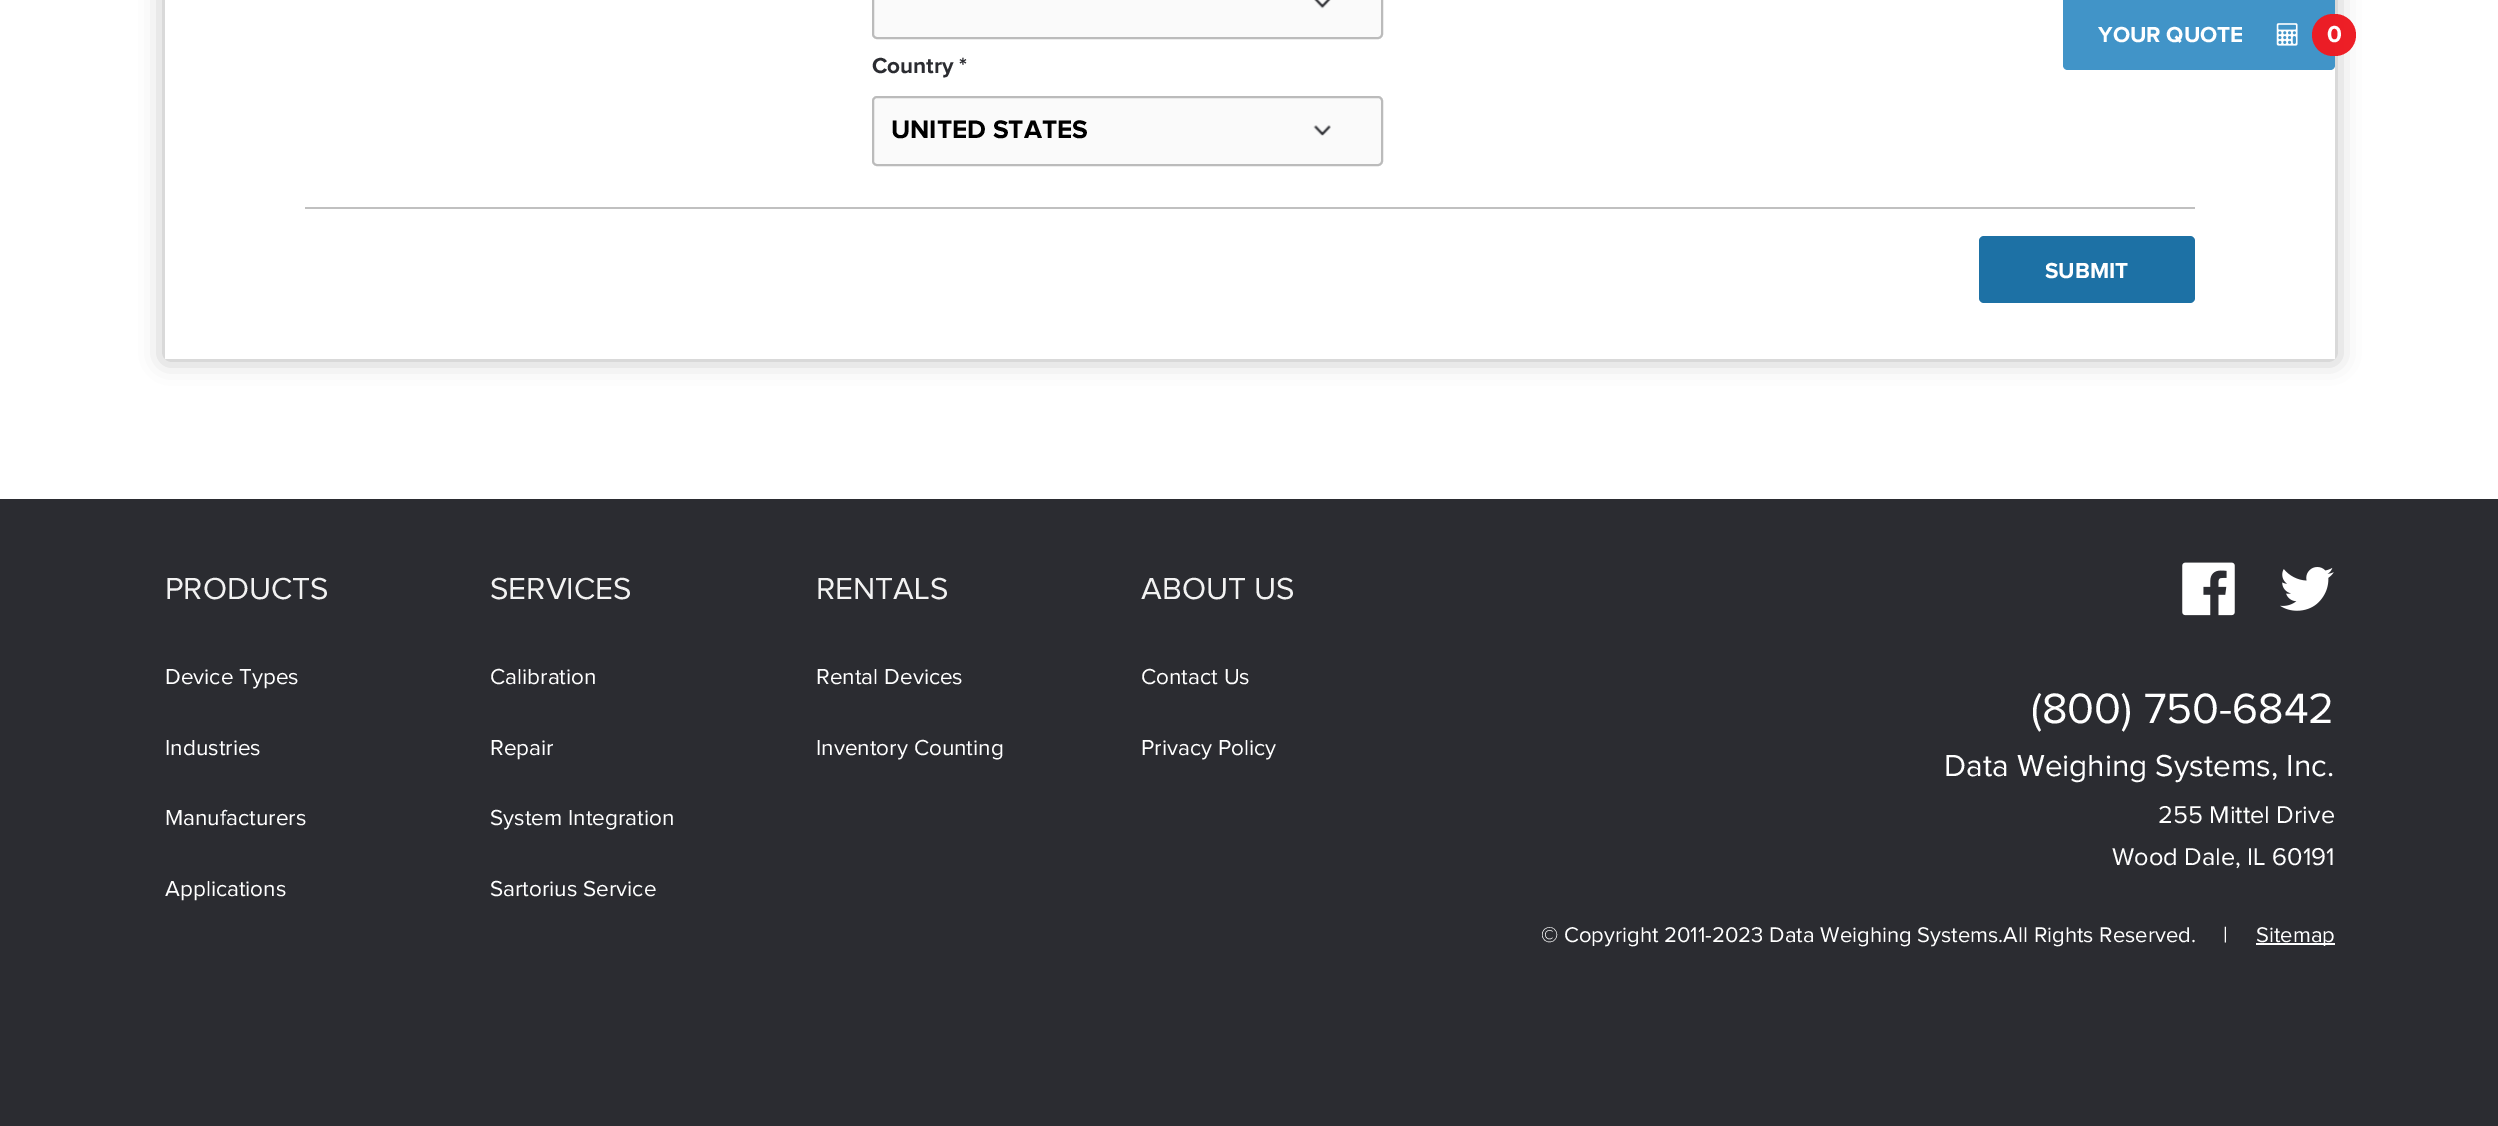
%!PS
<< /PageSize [2498 1126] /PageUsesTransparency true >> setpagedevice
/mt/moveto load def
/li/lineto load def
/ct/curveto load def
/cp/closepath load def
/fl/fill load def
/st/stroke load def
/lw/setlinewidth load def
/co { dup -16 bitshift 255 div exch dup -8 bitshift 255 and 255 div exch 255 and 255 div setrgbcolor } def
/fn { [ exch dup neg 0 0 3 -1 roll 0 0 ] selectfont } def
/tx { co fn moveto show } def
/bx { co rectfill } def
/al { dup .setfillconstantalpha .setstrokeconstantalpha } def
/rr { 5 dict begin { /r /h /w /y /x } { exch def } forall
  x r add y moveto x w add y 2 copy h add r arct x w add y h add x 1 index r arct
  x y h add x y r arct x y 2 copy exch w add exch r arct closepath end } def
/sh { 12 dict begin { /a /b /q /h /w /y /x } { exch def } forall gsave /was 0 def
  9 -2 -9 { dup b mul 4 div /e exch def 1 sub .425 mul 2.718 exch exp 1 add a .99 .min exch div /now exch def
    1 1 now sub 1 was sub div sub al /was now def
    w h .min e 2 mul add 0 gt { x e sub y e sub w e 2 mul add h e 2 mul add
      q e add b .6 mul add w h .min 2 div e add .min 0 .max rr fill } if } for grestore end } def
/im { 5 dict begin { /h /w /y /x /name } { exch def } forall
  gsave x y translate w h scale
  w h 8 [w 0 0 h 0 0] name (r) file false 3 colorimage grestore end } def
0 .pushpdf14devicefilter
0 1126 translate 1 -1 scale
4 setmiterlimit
0 0 2498 1126 16#FFFFFF bx
16#000000 co
165 -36 2170 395 0 12 .3 sh
165 0 2170 359 16#FFFFFF bx
16#4194C8 co
2063 0 mt 2335 0 li 2335 65 li 2335 68 2333 70 2330 70 ct 2068 70 li 2065 70 2063 68 2063 65 ct cp fl
(media/1.raw) 2276 23 22 23 im
0.99 al
16#ED1C24 co
2312 14 44 42 21 rr fl
1 al
305 207 1890 2 16#C0C0C0 bx
16#FAFAFA co
872 -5 511 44 5 rr fl
(media/2.raw) 1314 0 17 9 im
16#BBBBBB co
2 lw
873 -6 509 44 4 rr st
16#FAFAFA co
872 96 511 70 5 rr fl
(media/3.raw) 1313 125 18 11 im
16#BBBBBB co
873 97 509 68 4 rr st
16#1D71A5 co
1979 236 216 67 5 rr fl
0 499 2498 627 16#2B2C31 bx
(media/4.raw) 2182 562 53 54 im
(media/5.raw) 2280 567 54 44 im
2256 943 79 2 16#FFFFFF bx
(YOUR QUOTE) 2098 42 /ProximaNova-Bold 22.5 16#FFFFFF tx
(0) 2327 42 /ProximaNova-Bold 24 16#FFFFFF tx
(Country *) 872 73 /ProximaNova-Bold 22.5 16#2B2C31 tx
(UNITED STATES) 891 138 /ProximaNova-Bold 26.25 16#000000 tx
(SUBMIT) 2045 278 /ProximaNova-Bold 22.5 16#FFFFFF tx
(PRODUCTS) 165 599 /ProximaNova-Regular 31.5 16#F2F2F2 tx
(Device Types) 165 684 /ProximaNova-Regular 22.5 16#FFFFFF tx
(Industries) 165 755 /ProximaNova-Regular 22.5 16#FFFFFF tx
(Manufacturers) 165 825 /ProximaNova-Regular 22.5 16#FFFFFF tx
(Applications) 165 896 /ProximaNova-Regular 22.5 16#FFFFFF tx
(SERVICES) 490 599 /ProximaNova-Regular 31.5 16#F2F2F2 tx
(Calibration) 490 684 /ProximaNova-Regular 22.5 16#FFFFFF tx
(Repair) 490 755 /ProximaNova-Regular 22.5 16#FFFFFF tx
(System Integration) 490 825 /ProximaNova-Regular 22.5 16#FFFFFF tx
(Sartorius Service) 490 896 /ProximaNova-Regular 22.5 16#FFFFFF tx
(RENTALS) 816 599 /ProximaNova-Regular 31.5 16#F2F2F2 tx
(Rental Devices) 816 684 /ProximaNova-Regular 22.5 16#FFFFFF tx
(Inventory Counting) 816 755 /ProximaNova-Regular 22.5 16#FFFFFF tx
(ABOUT US) 1141 599 /ProximaNova-Regular 31.5 16#F2F2F2 tx
(Contact Us) 1141 684 /ProximaNova-Regular 22.5 16#FFFFFF tx
(Privacy Policy) 1141 755 /ProximaNova-Regular 22.5 16#FFFFFF tx
(\(800\) 750-6842) 2031 723 /ProximaNova-Regular 44 16#FFFFFF tx
(Data Weighing Systems, Inc.) 1944 776 /ProximaNova-Regular 31.5 16#FFFFFF tx
(255 Mittel Drive) 2158 823 /ProximaNova-Regular 25.25 16#FFFFFF tx
(Wood Dale, IL 60191) 2112 865 /ProximaNova-Regular 25.25 16#FFFFFF tx
(© Copyright 2011-2023 Data Weighing Systems.All Rights Reserved.) 1541 942 /ProximaNova-Regular 22.05 16#FFFFFF tx
(|) 2223 942 /ProximaNova-Regular 22.05 16#FFFFFF tx
(Sitemap) 2256 942 /ProximaNova-Regular 22.05 16#FFFFFF tx
.poppdf14devicefilter showpage
